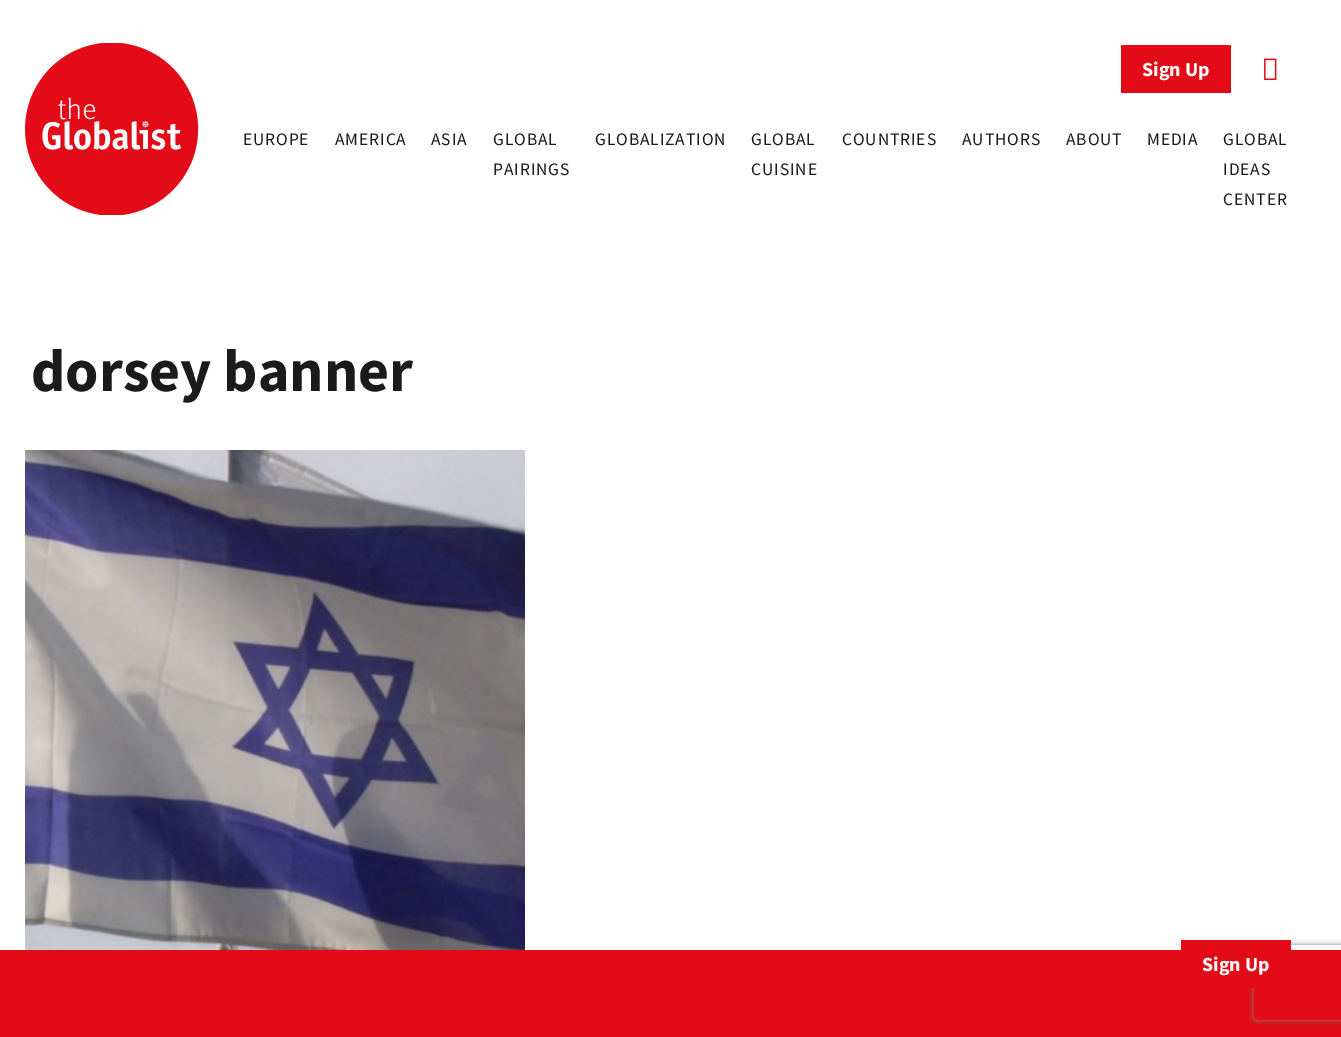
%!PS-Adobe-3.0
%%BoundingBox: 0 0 1341 1037
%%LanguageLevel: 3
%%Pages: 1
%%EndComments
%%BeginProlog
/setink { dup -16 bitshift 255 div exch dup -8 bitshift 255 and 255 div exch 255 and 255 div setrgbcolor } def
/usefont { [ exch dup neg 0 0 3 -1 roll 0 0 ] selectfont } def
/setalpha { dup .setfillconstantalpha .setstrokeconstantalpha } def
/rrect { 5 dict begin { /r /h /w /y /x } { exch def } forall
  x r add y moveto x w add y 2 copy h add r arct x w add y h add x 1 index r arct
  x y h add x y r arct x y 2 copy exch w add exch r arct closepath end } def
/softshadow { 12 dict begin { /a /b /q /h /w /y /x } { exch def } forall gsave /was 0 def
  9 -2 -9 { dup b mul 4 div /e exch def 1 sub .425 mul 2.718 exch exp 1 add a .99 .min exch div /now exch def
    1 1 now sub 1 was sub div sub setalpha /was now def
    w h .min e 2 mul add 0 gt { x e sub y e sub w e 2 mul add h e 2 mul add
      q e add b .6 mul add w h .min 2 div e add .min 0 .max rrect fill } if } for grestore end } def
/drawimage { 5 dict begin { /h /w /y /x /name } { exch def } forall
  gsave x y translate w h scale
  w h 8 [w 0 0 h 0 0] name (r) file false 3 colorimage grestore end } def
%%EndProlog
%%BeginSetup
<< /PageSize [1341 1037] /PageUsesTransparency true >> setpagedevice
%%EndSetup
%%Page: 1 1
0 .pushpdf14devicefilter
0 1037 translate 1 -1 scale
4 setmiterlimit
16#FFFFFF setink
0 0 1341 1037 rectfill
(img1.raw) 25 43 174 172 drawimage
16#E30B17 setink
1121 45 110 48 rectfill
/SourceSansPro-Bold 20 usefont
16#FFFFFF setink
1142 76 moveto (Sign Up) show
(img2.raw) 1264 58 13 22 drawimage
/SourceSansPro-Regular 17.5 usefont
16#1C1B1C setink
243 145 moveto 0.9 0 (EUROPE) ashow
335 145 moveto 0.9 0 (AMERICA) ashow
431 145 moveto 0.9 0 (ASIA) ashow
493 145 moveto 0.9 0 (GLOBAL) ashow
493 175 moveto 0.9 0 (PAIRINGS) ashow
595 145 moveto 0.9 0 (GLOBALIZATION) ashow
751 145 moveto 0.9 0 (GLOBAL) ashow
751 175 moveto 0.9 0 (CUISINE) ashow
842 145 moveto 0.9 0 (COUNTRIES) ashow
962 145 moveto 0.9 0 (AUTHORS) ashow
1066 145 moveto 0.9 0 (ABOUT) ashow
1147 145 moveto 0.9 0 (MEDIA) ashow
1223 145 moveto 0.9 0 (GLOBAL) ashow
1223 175 moveto 0.9 0 (IDEAS) ashow
1223 205 moveto 0.9 0 (CENTER) ashow
/SourceSansPro-Bold 60 usefont
31 391 moveto (dorsey banner) show
(img3.raw) 25 450 500 500 drawimage
16#E30B17 setink
0 950 1341 87 rectfill
gsave
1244 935 moveto 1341 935 lineto 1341 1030 lineto 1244 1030 lineto closepath 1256.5 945 moveto 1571.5 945 lineto 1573 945 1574 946 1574 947.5 curveto 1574 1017.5 lineto 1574 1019 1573 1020 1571.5 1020 curveto 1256.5 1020 lineto 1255 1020 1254 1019 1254 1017.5 curveto 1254 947.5 lineto 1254 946 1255 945 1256.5 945 curveto closepath eoclip newpath
16#808080 setink
1254 945 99 75 2.5 3 1 softshadow
grestore
1181 940 110 48 rectfill
/SourceSansPro-Bold 20 usefont
16#FFFFFF setink
1202 971 moveto (Sign Up) show
.poppdf14devicefilter showpage
%%EOF
